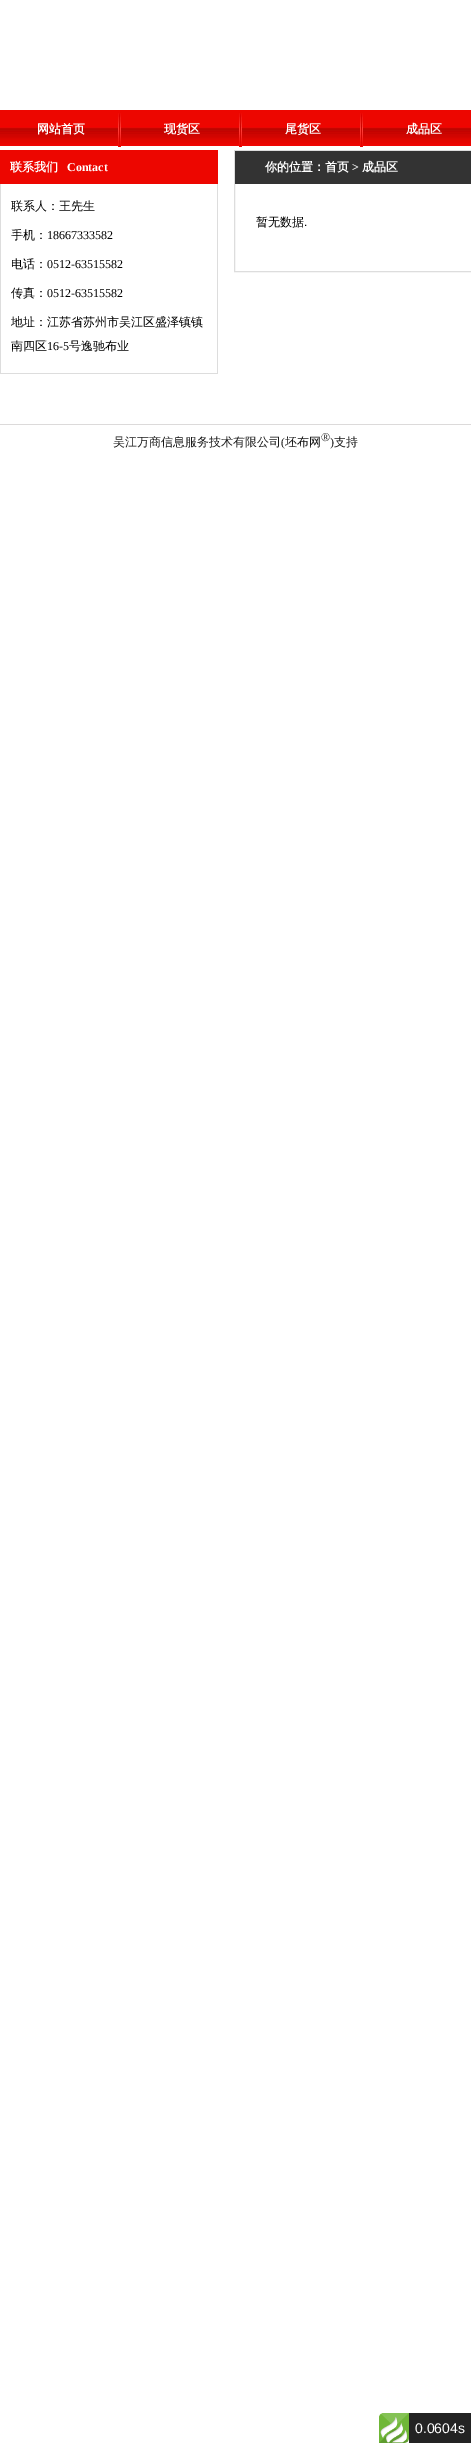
%!PS-Adobe-3.0
%%BoundingBox: 0 0 471 2443
%%LanguageLevel: 3
%%Pages: 1
%%EndComments
%%BeginProlog
/setink { dup -16 bitshift 255 div exch dup -8 bitshift 255 and 255 div exch 255 and 255 div setrgbcolor } def
/usefont { [ exch dup neg 0 0 3 -1 roll 0 0 ] selectfont } def
/drawimage { 5 dict begin { /h /w /y /x /name } { exch def } forall
  gsave x y translate w h scale
  w h 8 [w 0 0 h 0 0] name (r) file false 3 colorimage grestore end } def
%%EndProlog
%%BeginSetup
<< /PageSize [471 2443] >> setpagedevice
%%EndSetup
%%Page: 1 1
0 2443 translate 1 -1 scale
4 setmiterlimit
16#FFFFFF setink
0 0 471 2443 rectfill
(img1.raw) 0 110 471 36 drawimage
(img2.raw) 118 113 3 34 drawimage
/WenQuanYiZenHei-Bold 12 usefont
37 133 moveto (网站首页) show
(img2.raw) 239 113 3 34 drawimage
164 133 moveto (现货区) show
(img2.raw) 360 113 3 34 drawimage
285 133 moveto (尾货区) show
406 133 moveto (成品区) show
16#ED0600 setink
0 150 218 34 rectfill
16#FFFFFF setink
10 171 moveto (联系我们) show
/LiberationSerif-Bold 12 usefont
67 171 moveto (Contact) show
[
    [217 184 1 190 16#DDDDDD]
    [0 373 218 1 16#DDDDDD]
    [0 184 1 190 16#DDDDDD]
] { aload pop setink rectfill } forall
/WenQuanYiZenHei-Medium 12 usefont
16#000000 setink
11 210 moveto (联系人：王先生) show
11 239 moveto (手机：) show
/LiberationSerif-Regular 12 usefont
47 239 moveto (18667333582) show
/WenQuanYiZenHei-Medium 12 usefont
11 268 moveto (电话：) show
/LiberationSerif-Regular 12 usefont
47 268 moveto (0512-63515582) show
/WenQuanYiZenHei-Medium 12 usefont
11 297 moveto (传真：) show
/LiberationSerif-Regular 12 usefont
47 297 moveto (0512-63515582) show
/WenQuanYiZenHei-Medium 12 usefont
11 326 moveto (地址：江苏省苏州市吴江区盛泽镇镇) show
11 350 moveto (南四区) show
/LiberationSerif-Regular 12 usefont
47 350 moveto (16-5) show
/WenQuanYiZenHei-Medium 12 usefont
69 350 moveto (号逸驰布业) show
16#DDDDDD setink
234.5 150.5 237 121 rectstroke
16#333333 setink
235 151 236 33 rectfill
/WenQuanYiZenHei-Bold 12 usefont
16#FFFFFF setink
265 171 moveto (你的位置：首页) show
/LiberationSerif-Bold 12 usefont
352 171 moveto (>) show
/WenQuanYiZenHei-Bold 12 usefont
362 171 moveto (成品区) show
/WenQuanYiZenHei-Medium 12 usefont
16#000000 setink
256 226 moveto (暂无数据) show
/LiberationSans-Regular 12 usefont
304 226 moveto (.) show
16#DCDADA setink
0 424 471 1 rectfill
/WenQuanYiZenHei-Medium 12 usefont
16#191919 setink
113 446 moveto (吴江万商信息服务技术有限公司) show
/LiberationSerif-Regular 12 usefont
281 446 moveto (\() show
/WenQuanYiZenHei-Medium 12 usefont
285 446 moveto (坯布网) show
/LiberationSerif-Regular 12 usefont
321 441 moveto (®) show
330 446 moveto (\)) show
/WenQuanYiZenHei-Medium 12 usefont
334 446 moveto (支持) show
(img3.raw) 379 2413 30 30 drawimage
16#232323 setink
409 2413 62 30 rectfill
/LiberationSans-Regular 14 usefont
16#FFFFFF setink
415 2433 moveto (0.0604s) show
showpage
%%EOF
